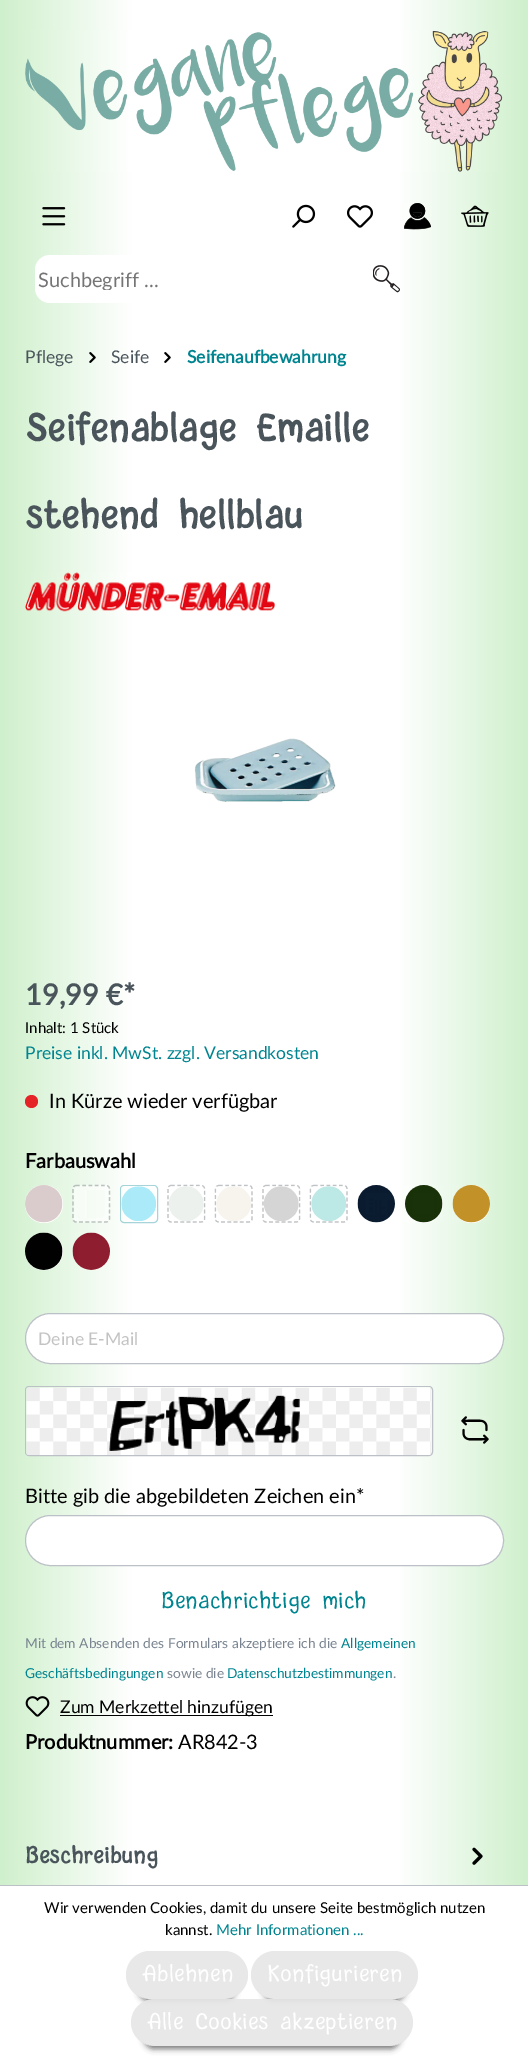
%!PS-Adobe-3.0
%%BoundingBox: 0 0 528 2056
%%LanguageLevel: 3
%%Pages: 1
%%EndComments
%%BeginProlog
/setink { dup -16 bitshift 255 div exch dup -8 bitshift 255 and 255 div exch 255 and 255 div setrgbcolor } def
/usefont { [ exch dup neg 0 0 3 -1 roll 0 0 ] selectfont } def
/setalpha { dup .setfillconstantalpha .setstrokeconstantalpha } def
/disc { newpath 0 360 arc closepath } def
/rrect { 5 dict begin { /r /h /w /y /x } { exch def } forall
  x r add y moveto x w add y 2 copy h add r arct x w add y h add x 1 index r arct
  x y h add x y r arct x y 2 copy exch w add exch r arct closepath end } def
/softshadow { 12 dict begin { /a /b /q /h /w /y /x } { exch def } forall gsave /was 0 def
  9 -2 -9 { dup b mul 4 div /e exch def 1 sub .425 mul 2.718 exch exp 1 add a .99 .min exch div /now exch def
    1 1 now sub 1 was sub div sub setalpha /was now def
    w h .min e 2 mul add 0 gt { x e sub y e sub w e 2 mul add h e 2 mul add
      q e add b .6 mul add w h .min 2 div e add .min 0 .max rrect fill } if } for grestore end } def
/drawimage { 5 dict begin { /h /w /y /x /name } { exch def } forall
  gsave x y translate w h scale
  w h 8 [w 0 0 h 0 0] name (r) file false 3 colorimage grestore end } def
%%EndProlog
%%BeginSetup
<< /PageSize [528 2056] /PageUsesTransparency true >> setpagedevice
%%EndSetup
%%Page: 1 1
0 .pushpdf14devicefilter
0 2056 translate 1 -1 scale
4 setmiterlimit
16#FFFFFF setink
0 0 528 2056 rectfill
gsave 0 0 moveto 528 0 lineto 528 1885 lineto 0 1885 lineto closepath clip newpath
<< /ShadingType 2 /ColorSpace /DeviceRGB /Coords [0 1633 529 1633] /Extend [true true] /Function << /FunctionType 3 /Domain [0 1] /Functions [<< /FunctionType 2 /Domain [0 1] /C0 [0.812 0.941 0.8] /C1 [1 1 1] /N 1 >> << /FunctionType 2 /Domain [0 1] /C0 [1 1 1] /C1 [1 1 1] /N 1 >> << /FunctionType 2 /Domain [0 1] /C0 [1 1 1] /C1 [0.812 0.941 0.8] /N 1 >>] /Bounds [0.25 0.75] /Encode [0 1 0 1 0 1] >> >> shfill grestore
(img1.raw) 25 30 478 142 drawimage
(img2.raw) 42 207 24 19 drawimage
(img3.raw) 292 204 24 24 drawimage
(img4.raw) 347 205 26 23 drawimage
(img5.raw) 404 203 27 27 drawimage
(img6.raw) 461 205 28 22 drawimage
35 255 324 48 15 rrect fill
gsave
38 266 318 24 rectclip
/Lato-Regular 20 usefont
16#757575 setink
38 287 moveto (Suchbegriff ...) show
grestore
(img7.raw) 373 265 27 28 drawimage
/Lato-Regular 17.5 usefont
16#4A545B setink
25 363 moveto (Pflege) show
(img8.raw) 89 352 7 11 drawimage
111 363 moveto (Seife) show
(img9.raw) 164 352 7 11 drawimage
/Lato-Bold 17.5 usefont
16#008490 setink
187 363 moveto (Seifenaufbewahrung) show
/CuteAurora-Bold 42 usefont
16#4A545B setink
25 441 moveto (Seifenablage Emaille) show
25 528 moveto (stehend hellblau) show
(img10.raw) 25 572 250 40 drawimage
(img11.raw) 194 738 142 64 drawimage
/Lato-Bold 29 usefont
25 1005 moveto (19,99 €*) show
/Lato-Regular 15 usefont
16#000000 setink
25 1033 moveto (Inhalt: 1 Stück) show
/Lato-Regular 17.5 usefont
16#008490 setink
25 1059 moveto (Preise inkl. MwSt. zzgl. Versandkosten) show
16#E52427 setink
31.5 1101.5 6.5 disc fill
/Lato-Regular 20 usefont
16#000000 setink
49 1108 moveto (In Kürze wieder verfügbar) show
/Lato-Bold 20 usefont
25 1168 moveto (Farbauswahl) show
16#FFFFFF setink
44 1204 19 disc fill
29 1216 moveto 36 1224.5 49.5 1225.5 57.5 1217.5 curveto 65.5 1209.5 64.5 1196 55.5 1189 curveto 63 1200 57.5 1219 40 1219 curveto 35.5 1219 32 1218 29 1216 curveto closepath fill
48 1189 moveto 52.5 1189 56.5 1190.5 59 1192.5 curveto 52.5 1183.5 38.5 1182.5 30.5 1190.5 curveto 22 1199 23.5 1213.5 33.5 1220 curveto 24.5 1209.5 29.5 1189 48 1189 curveto closepath fill
(img12.raw) 25 1185 38 38 drawimage
0.35 setalpha
73 1185 37 38 4 rrect fill
74 1218 moveto 74 1218.5 lineto 74 1220 75 1221 76.5 1221 curveto 106.5 1221 lineto 108 1221 109 1220 109 1218.5 curveto 109 1188.5 lineto 109 1187 108 1186 106.5 1186 curveto 105 1186 lineto 105 1215 lineto 105 1216 104 1218 102 1218 curveto closepath fill
80 1190 moveto 109 1190 lineto 109 1185 106.5 1186 101.5 1186 curveto 81.5 1186 lineto 73.5 1186 74 1185.5 74 1193.5 curveto 74 1213.5 lineto 74 1218.5 73 1221 78 1221 curveto 78 1192 lineto 78 1191 79 1190 80 1190 curveto closepath fill
16#4A545B setink
1.2 setlinewidth
[3.75 2.5] 0 setdash
76 1185.5 moveto 106 1185.5 lineto 108 1185.5 109.5 1187 109.5 1189 curveto 109.5 1219 lineto 109.5 1220.5 108 1222 106 1222 curveto 76 1222 lineto 74.5 1222 73 1220.5 73 1219 curveto 73 1189 lineto 73 1187 74.5 1185.5 76 1185.5 curveto closepath stroke
1 setalpha
(img13.raw) 78 1190 9 28 drawimage
0.35 setalpha
16#008490 setink
1 setlinewidth
[] 0 setdash
120.5 1185.5 37 37 3.5 rrect stroke
1 setalpha
(img14.raw) 121 1186 35 35 drawimage
16#C0C3C6 setink
1.2 setlinewidth
[3.75 2.5] 0 setdash
171 1185.5 moveto 201 1185.5 lineto 203 1185.5 204.5 1187 204.5 1189 curveto 204.5 1219 lineto 204.5 1220.5 203 1222 201 1222 curveto 171 1222 lineto 169.5 1222 168 1220.5 168 1219 curveto 168 1189 lineto 168 1187 169.5 1185.5 171 1185.5 curveto closepath stroke
(img15.raw) 169 1186 35 35 drawimage
219 1185.5 moveto 249 1185.5 lineto 250.5 1185.5 252 1187 252 1189 curveto 252 1219 lineto 252 1220.5 250.5 1222 249 1222 curveto 219 1222 lineto 217 1222 215.5 1220.5 215.5 1219 curveto 215.5 1189 lineto 215.5 1187 217 1185.5 219 1185.5 curveto closepath stroke
(img16.raw) 216 1186 35 35 drawimage
266 1185.5 moveto 296 1185.5 lineto 298 1185.5 299.5 1187 299.5 1189 curveto 299.5 1219 lineto 299.5 1220.5 298 1222 296 1222 curveto 266 1222 lineto 264.5 1222 263 1220.5 263 1219 curveto 263 1189 lineto 263 1187 264.5 1185.5 266 1185.5 curveto closepath stroke
(img17.raw) 264 1186 35 35 drawimage
314 1185.5 moveto 344 1185.5 lineto 345.5 1185.5 347 1187 347 1189 curveto 347 1219 lineto 347 1220.5 345.5 1222 344 1222 curveto 314 1222 lineto 312 1222 310.5 1220.5 310.5 1219 curveto 310.5 1189 lineto 310.5 1187 312 1185.5 314 1185.5 curveto closepath stroke
(img18.raw) 311 1186 35 35 drawimage
(img19.raw) 357 1185 38 38 drawimage
16#FFFFFF setink
424 1204 19 disc fill
409 1216 moveto 416 1224.5 429.5 1225.5 437.5 1217.5 curveto 445.5 1209.5 444.5 1196 435.5 1189 curveto 443 1200 437.5 1219 420 1219 curveto 415.5 1219 412 1218 409 1216 curveto closepath fill
428 1189 moveto 432.5 1189 436.5 1190.5 439 1192.5 curveto 432.5 1183.5 418.5 1182.5 410.5 1190.5 curveto 402 1199 403.5 1213.5 413.5 1220 curveto 404.5 1209.5 409.5 1189 428 1189 curveto closepath fill
(img20.raw) 405 1185 38 38 drawimage
453 1185 37 38 18.5 rrect fill
456.5 1215.5 moveto 463.5 1224.5 476.5 1225.5 484.5 1217.5 curveto 492.5 1209.5 491.5 1196 483 1189 curveto 490 1200 485 1219 468 1219 curveto 463.5 1219 459.5 1217.5 456.5 1215.5 curveto closepath fill
475 1189 moveto 479.5 1189 483.5 1190 486 1192 curveto 479.5 1183.5 466.5 1182.5 458.5 1190.5 curveto 450.5 1198 451.5 1212 460 1219 curveto 452 1208 457 1189 475 1189 curveto closepath fill
(img21.raw) 452 1185 38 38 drawimage
25 1233 38 37 18.5 rrect fill
29 1263 moveto 35.5 1271.5 49.5 1272.5 57.5 1264.5 curveto 65.5 1256.5 64.5 1243 55.5 1236.5 curveto 63 1247.5 57.5 1266 40 1266 curveto 35.5 1266 31.5 1265 29 1263 curveto closepath fill
(img22.raw) 25 1232 38 38 drawimage
77 1263 moveto 83.5 1271.5 96.5 1272.5 104.5 1264.5 curveto 112 1257 111.5 1244 103.5 1237 curveto 110 1248 104.5 1266 88 1266 curveto 83.5 1266 79.5 1265 77 1263 curveto closepath fill
(img23.raw) 72 1232 38 38 drawimage
25.5 1313.5 478 50 25 rrect gsave fill grestore
16#BCC1C7 setink
1 setlinewidth
[] 0 setdash
stroke
/Lato-Regular 17.5 usefont
16#C3C3C3 setink
38 1345 moveto (Deine E-Mail) show
16#BCC1C7 setink
25.5 1386.5 407 69 3.5 rrect stroke
(img24.raw) 26 1387 405 68 drawimage
(img25.raw) 461 1416 28 28 drawimage
/Lato-Regular 20 usefont
16#000000 setink
25 1503 moveto (Bitte gib die abgebildeten Zeichen ein*) show
16#FFFFFF setink
25.5 1515.5 478 50 25 rrect gsave fill grestore
16#BCC1C7 setink
stroke
/CuteAurora-Regular 25 usefont
16#008490 setink
161 1608 moveto (Benachrichtige mich) show
/Lato-Regular 13.75 usefont
16#798490 setink
25 1648 moveto (Mit dem Absenden des Formulars akzeptiere ich die) show
16#008490 setink
341 1648 moveto (Allgemeinen) show
25 1678 moveto (Geschäftsbedingungen) show
16#798490 setink
167 1678 moveto (sowie die) show
16#008490 setink
227 1678 moveto (Datenschutzbestimmungen) show
16#798490 setink
393 1678 moveto (.) show
(img26.raw) 25 1696 25 21 drawimage
16#000000 setink
60 1715 213 1 rectfill
/Lato-Regular 17.5 usefont
60 1713 moveto (Zum Merkzettel hinzufügen) show
/Lato-Bold 20 usefont
25 1749 moveto (Produktnummer:) show
/Lato-Regular 20 usefont
178 1749 moveto (AR842-3) show
/CuteAurora-Bold 25 usefont
16#4A545B setink
25 1863 moveto (Beschreibung) show
(img27.raw) 472 1847 11 18 drawimage
16#BCC1C7 setink
0 1885 528 1 rectfill
/Lato-Regular 15 usefont
16#000000 setink
44 1913 moveto (Wir verwenden Cookies, damit du unsere Seite bestmöglich nutzen) show
165 1935 moveto (kannst.) show
16#008490 setink
216 1935 moveto (Mehr Informationen ...) show
gsave
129 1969 moveto 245 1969 lineto 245 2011 lineto 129 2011 lineto closepath 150 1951 moveto 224 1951 lineto 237.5 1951 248 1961.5 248 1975 curveto 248 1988.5 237.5 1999 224 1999 curveto 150 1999 lineto 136.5 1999 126 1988.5 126 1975 curveto 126 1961.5 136.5 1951 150 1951 curveto closepath eoclip newpath
16#777777 setink
139 1979 96 22 11 3 1 softshadow
grestore
0.91 setalpha
16#E6E6E6 setink
126 1951 122 48 24 rrect fill
/CuteAurora-Regular 25 usefont
1 setalpha
16#FFFFFF setink
142 1981 moveto (Ablehnen) show
gsave
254 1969 moveto 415 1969 lineto 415 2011 lineto 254 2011 lineto closepath 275 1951 moveto 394 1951 lineto 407.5 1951 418 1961.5 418 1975 curveto 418 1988.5 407.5 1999 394 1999 curveto 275 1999 lineto 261.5 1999 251 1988.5 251 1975 curveto 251 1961.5 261.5 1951 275 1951 curveto closepath eoclip newpath
16#777777 setink
264 1979 141 22 11 3 1 softshadow
grestore
0.91 setalpha
16#E6E6E6 setink
251 1951 167 48 24 rrect fill
1 setalpha
16#FFFFFF setink
267 1981 moveto (Konfigurieren) show
gsave
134 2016 moveto 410 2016 lineto 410 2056 lineto 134 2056 lineto closepath 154.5 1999 moveto 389.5 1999 lineto 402.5 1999 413 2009.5 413 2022.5 curveto 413 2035.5 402.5 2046 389.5 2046 curveto 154.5 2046 lineto 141.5 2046 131 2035.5 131 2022.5 curveto 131 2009.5 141.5 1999 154.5 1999 curveto closepath eoclip newpath
16#777777 setink
144 2026 256 23 11.5 3 1 softshadow
grestore
0.91 setalpha
16#E6E6E6 setink
131 1999 282 47 23.5 rrect fill
1 setalpha
16#FFFFFF setink
147 2029 moveto (Alle Cookies akzeptieren) show
.poppdf14devicefilter showpage
%%EOF
